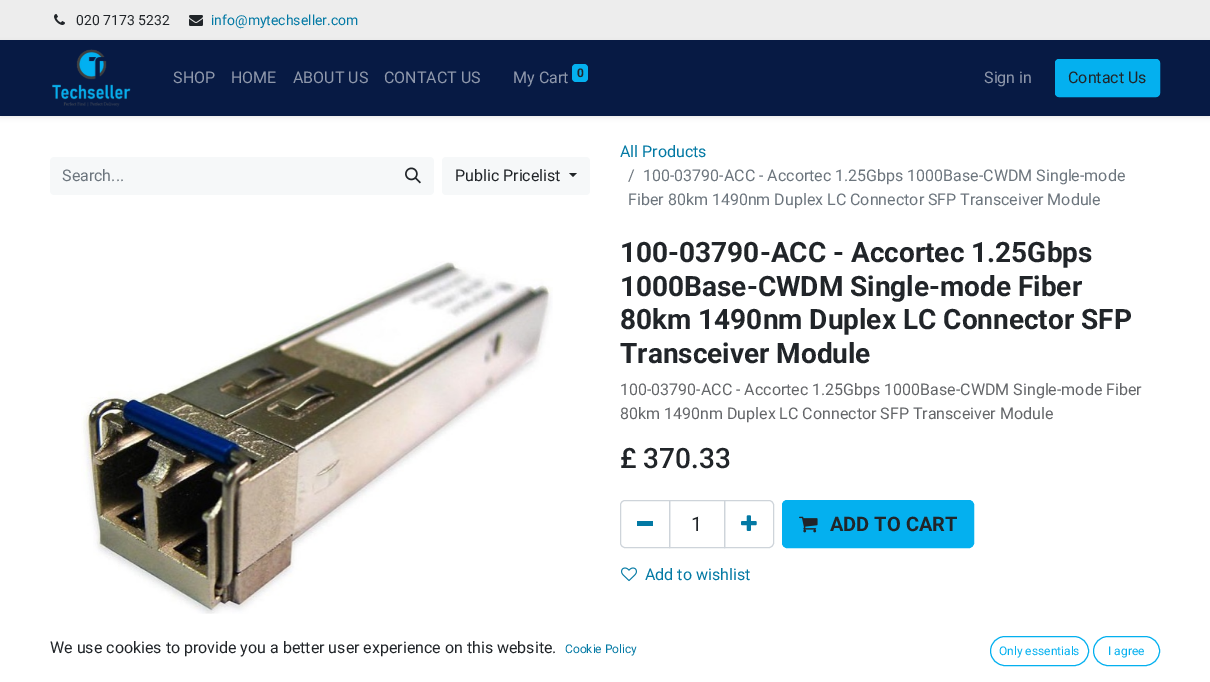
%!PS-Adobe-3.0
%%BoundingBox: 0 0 1210 682
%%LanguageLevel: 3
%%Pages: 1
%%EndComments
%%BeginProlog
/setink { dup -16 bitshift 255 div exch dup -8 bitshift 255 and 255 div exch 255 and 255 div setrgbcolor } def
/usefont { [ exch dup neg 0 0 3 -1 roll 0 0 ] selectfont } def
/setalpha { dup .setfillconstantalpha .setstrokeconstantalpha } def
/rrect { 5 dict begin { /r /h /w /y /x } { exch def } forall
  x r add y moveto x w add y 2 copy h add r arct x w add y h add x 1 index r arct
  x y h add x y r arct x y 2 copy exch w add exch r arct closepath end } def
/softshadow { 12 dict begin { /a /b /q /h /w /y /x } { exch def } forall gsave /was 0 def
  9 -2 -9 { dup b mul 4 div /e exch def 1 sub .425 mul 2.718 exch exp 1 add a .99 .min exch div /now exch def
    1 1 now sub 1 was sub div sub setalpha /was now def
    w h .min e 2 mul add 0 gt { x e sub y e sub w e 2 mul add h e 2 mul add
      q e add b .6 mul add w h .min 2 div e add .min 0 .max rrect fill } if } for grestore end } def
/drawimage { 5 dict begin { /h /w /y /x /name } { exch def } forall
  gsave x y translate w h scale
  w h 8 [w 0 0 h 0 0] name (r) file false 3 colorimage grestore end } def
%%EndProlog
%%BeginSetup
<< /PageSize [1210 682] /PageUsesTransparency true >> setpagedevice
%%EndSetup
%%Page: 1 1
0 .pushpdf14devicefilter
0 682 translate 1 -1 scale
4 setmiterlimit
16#FFFFFF setink
0 0 1210 682 rectfill
16#EDEDED setink
0 0 1210 40 rectfill
(img1.raw) 54 14 11 11 drawimage
/Roboto-Regular 14 usefont
16#212529 setink
76 25 moveto (020 7173 5232) show
(img2.raw) 189 15 14 11 drawimage
16#0379A4 setink
211 25 moveto (info@mytechseller.com) show
16#000000 setink
0 42 1210 76 0 2 0.07 softshadow
16#071A44 setink
0 40 1210 76 rectfill
(img3.raw) 52 49 79 58 drawimage
/Roboto-Regular 16 usefont
16#8F98AB setink
[
    [(SHOP) 173 83]
    [(HOME) 231 83]
    [(ABOUT US) 293 83]
    [(CONTACT US) 384 83]
    [(My Cart) 513 83]
] { aload pop moveto show } forall
16#04B0EF setink
572 64 16 18 4 rrect fill
/Roboto-Bold 12 usefont
16#212529 setink
577 77 moveto (0) show
/Roboto-Regular 16 usefont
16#8F98AB setink
984 83 moveto (Sign in) show
16#04B0EF setink
1055.5 59.5 104 37 3.5 rrect gsave fill grestore
stroke
16#212529 setink
1068 83 moveto (Contact Us) show
16#F6F8F9 setink
54 157 moveto 393 157 lineto 393 195 lineto 54 195 lineto 52 195 50 193 50 191 curveto 50 161 lineto 50 159 52 157 54 157 curveto closepath fill
16#6C757D setink
62 181 moveto (Search...) show
16#F6F8F9 setink
392 157 moveto 430 157 lineto 432 157 434 159 434 161 curveto 434 191 lineto 434 193 432 195 430 195 curveto 392 195 lineto closepath fill
(img4.raw) 405 167 16 17 drawimage
442 157 148 38 4 rrect fill
16#212529 setink
455 181 moveto (Public Pricelist) show
569 173 moveto 577 173 lineto 573 177 lineto closepath fill
16#0379A4 setink
620 157 moveto (All Products) show
16#6C757D setink
[
    [(/) 628 181]
    [(100-03790-ACC - Accortec 1.25Gbps 1000Base-CWDM Single-mode) 643 181]
    [(Fiber 80km 1490nm Duplex LC Connector SFP Transceiver Module) 628 205]
] { aload pop moveto show } forall
(img5.raw) 81 261 472 353 drawimage
/Roboto-Bold 28 usefont
16#212529 setink
[
    [(100-03790-ACC - Accortec 1.25Gbps) 620 262]
    [(1000Base-CWDM Single-mode Fiber) 620 296]
    [(80km 1490nm Duplex LC Connector SFP) 620 329]
    [(Transceiver Module) 620 363]
] { aload pop moveto show } forall
/Roboto-Regular 16 usefont
16#646669 setink
620 395 moveto (100-03790-ACC - Accortec 1.25Gbps 1000Base-CWDM Single-mode Fiber) show
620 419 moveto (80km 1490nm Duplex LC Connector SFP Transceiver Module) show
/Roboto-Medium 28 usefont
16#212529 setink
620 468 moveto (£ 370.33) show
16#CED4DA setink
669.5 500.5 55 47 rectstroke
625 500.5 moveto 669.5 500.5 lineto 669.5 547.5 lineto 625 547.5 lineto 622.5 547.5 620.5 545.5 620.5 543 curveto 620.5 505 lineto 620.5 502.5 622.5 500.5 625 500.5 curveto closepath stroke
16#0379A4 setink
637 521 16 5 rectfill
/Roboto-Regular 20 usefont
16#212529 setink
691 531 moveto (1) show
16#CED4DA setink
724.5 500.5 moveto 769 500.5 lineto 771.5 500.5 773.5 502.5 773.5 505 curveto 773.5 543 lineto 773.5 545.5 771.5 547.5 769 547.5 curveto 724.5 547.5 lineto closepath stroke
(img6.raw) 741 515 16 16 drawimage
16#04B0EF setink
782.5 500.5 191 47 4.5 rrect gsave fill grestore
stroke
(img7.raw) 799 516 19 17 drawimage
/Roboto-Bold 20 usefont
16#212529 setink
830 531 moveto (ADD TO CART) show
(img8.raw) 621 567 16 15 drawimage
/Roboto-Regular 16 usefont
16#0379A4 setink
645 580 moveto (Add to wishlist) show
16#212529 setink
50 653 moveto (We use cookies to provide you a better user experience on this website.) show
/Roboto-Regular 12 usefont
16#0379A4 setink
565 653 moveto (Cookie Policy) show
16#04B0EF setink
990.5 636.5 98 29 14.5 rrect stroke
999 655 moveto (Only essentials) show
1093.5 636.5 66 29 14.5 rrect stroke
1108 655 moveto (I agree) show
.poppdf14devicefilter showpage
%%EOF
